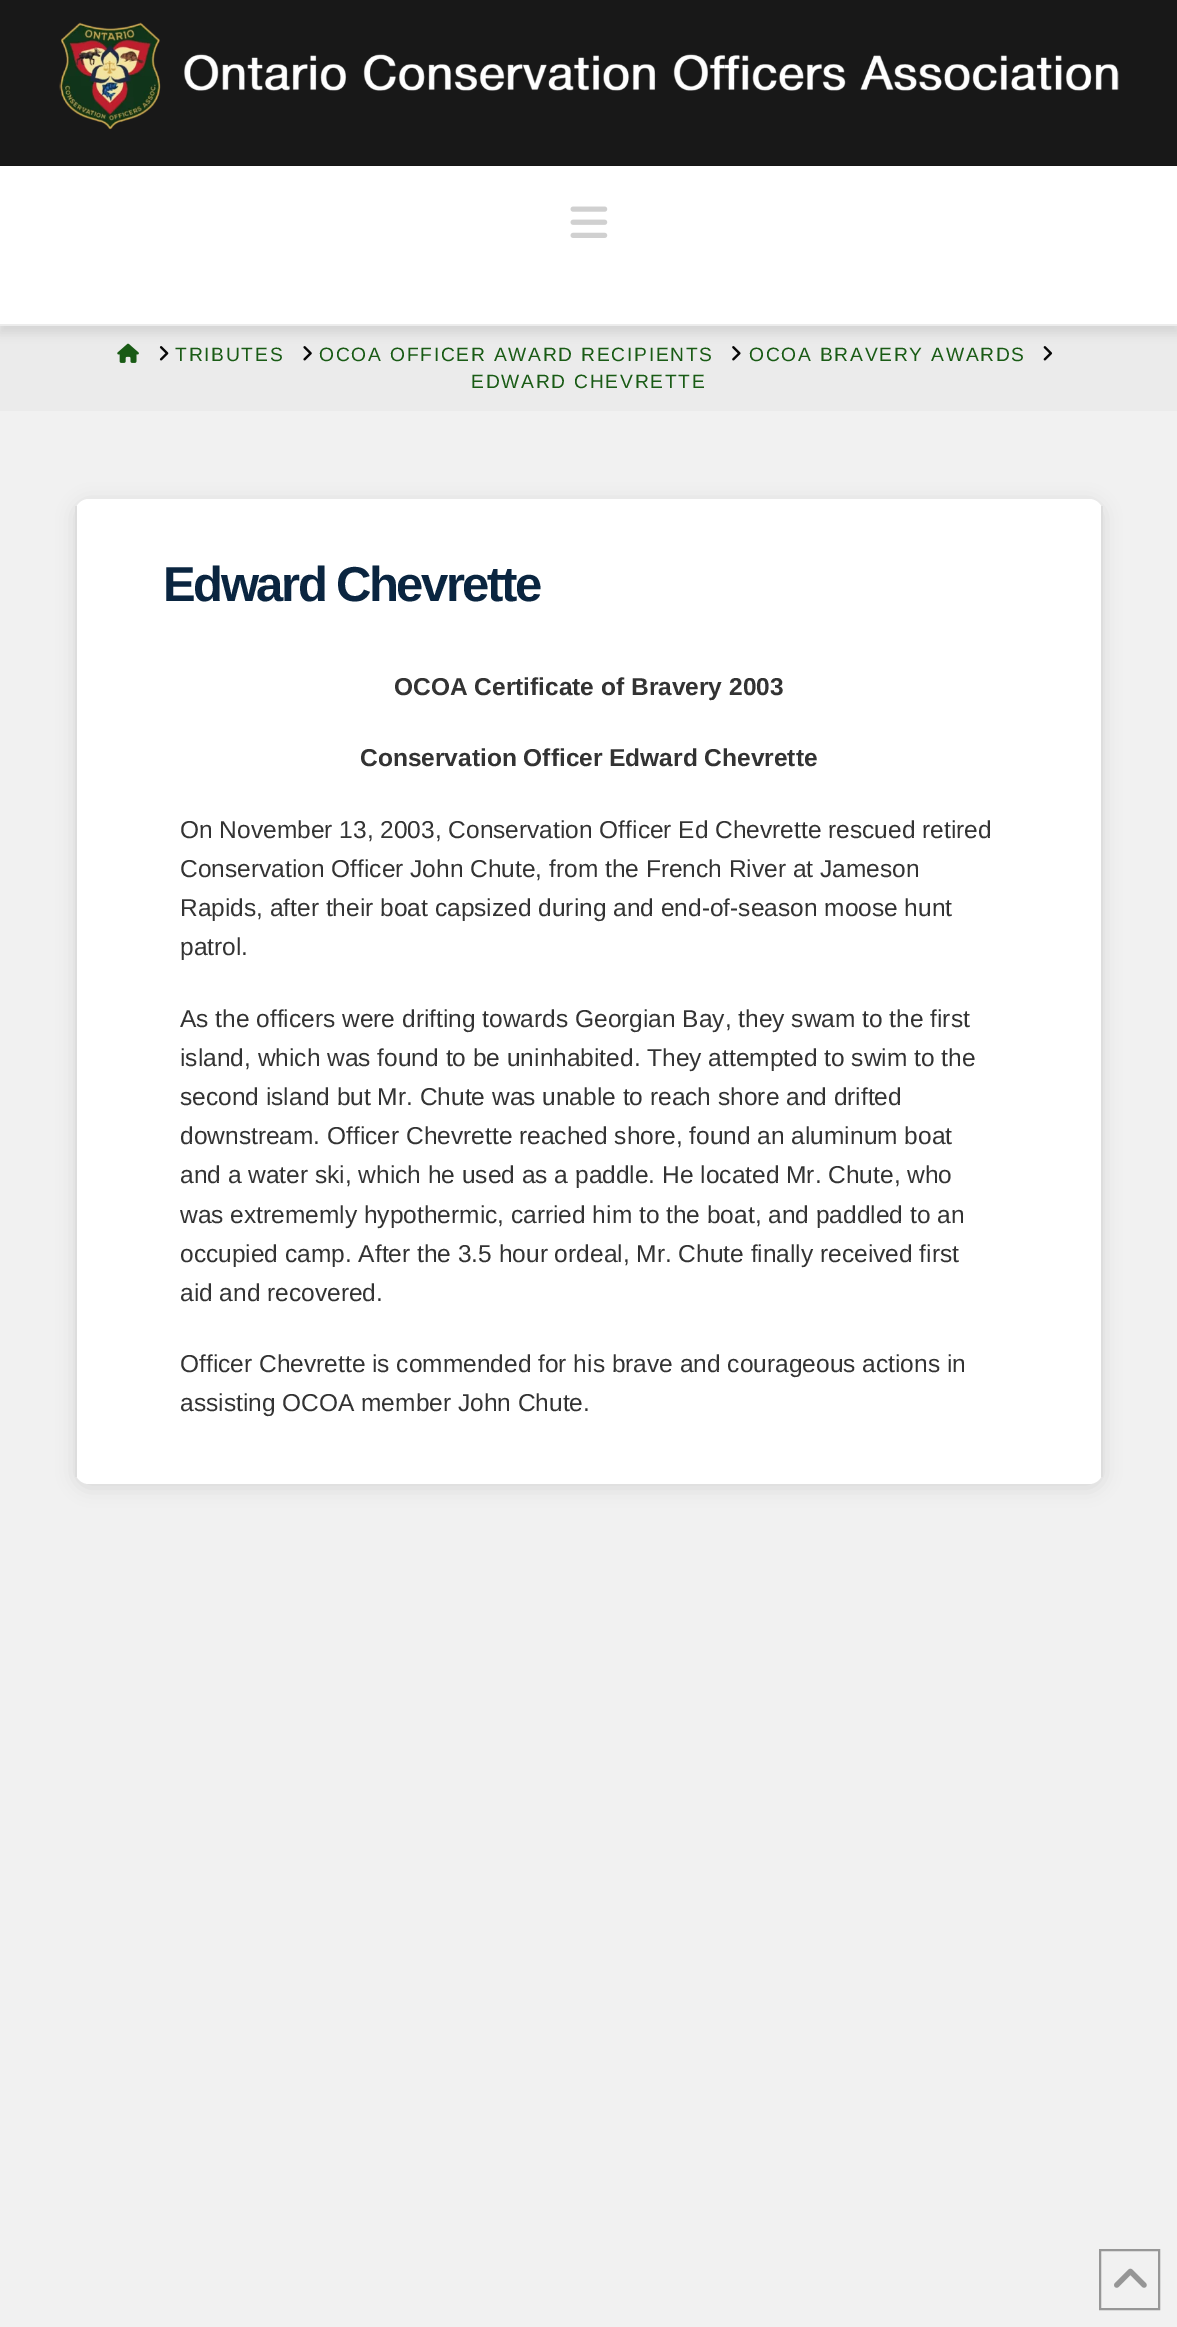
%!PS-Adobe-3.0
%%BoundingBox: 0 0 1177 2327
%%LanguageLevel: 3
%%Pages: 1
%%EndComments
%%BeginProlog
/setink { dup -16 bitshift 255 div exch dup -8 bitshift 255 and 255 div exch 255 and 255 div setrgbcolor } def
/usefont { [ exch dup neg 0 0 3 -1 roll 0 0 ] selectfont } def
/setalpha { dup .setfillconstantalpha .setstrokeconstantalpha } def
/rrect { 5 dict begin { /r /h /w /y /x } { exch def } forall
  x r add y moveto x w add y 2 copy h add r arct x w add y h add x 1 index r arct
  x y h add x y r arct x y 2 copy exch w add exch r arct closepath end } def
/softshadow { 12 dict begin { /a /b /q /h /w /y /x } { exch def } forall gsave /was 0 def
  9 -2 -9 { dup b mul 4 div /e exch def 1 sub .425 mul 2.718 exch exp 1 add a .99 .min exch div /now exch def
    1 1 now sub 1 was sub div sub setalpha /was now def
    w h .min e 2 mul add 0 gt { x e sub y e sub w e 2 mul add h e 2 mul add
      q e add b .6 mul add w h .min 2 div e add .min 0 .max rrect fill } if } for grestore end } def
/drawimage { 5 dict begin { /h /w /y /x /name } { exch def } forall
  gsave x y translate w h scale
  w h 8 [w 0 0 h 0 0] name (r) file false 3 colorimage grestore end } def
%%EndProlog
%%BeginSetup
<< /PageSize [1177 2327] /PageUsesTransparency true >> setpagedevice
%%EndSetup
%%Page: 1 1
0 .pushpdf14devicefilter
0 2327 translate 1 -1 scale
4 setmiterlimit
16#F1F1F1 setink
0 0 1177 2327 rectfill
16#181818 setink
0 0 1177 165 rectfill
16#161616 setink
0 165 1177 1 rectfill
(img1.raw) 59 22 1060 108 drawimage
16#EBEBEB setink
0 326 1177 85 rectfill
(img3.raw) 117 343 22 20 drawimage
(img4.raw) 159 346 10 15 drawimage
(img5.raw) 303 346 9 15 drawimage
(img6.raw) 732 346 9 15 drawimage
(img7.raw) 1043 346 10 15 drawimage
16#000000 setink
0 173 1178 160 0 5 0.1 softshadow
16#FFFFFF setink
0 166 1177 158 rectfill
16#ECECEC setink
0 324 1177 2 rectfill
(img2.raw) 570 206 38 32 drawimage
/LiberationSans-Regular 19.25 usefont
16#195B15 setink
175 361 moveto 1.75 0 (TRIBUTES) ashow
319 361 moveto 1.75 0 (OCOA OFFICER AWARD RECIPIENTS) ashow
749 361 moveto 1.75 0 (OCOA BRAVERY AWARDS) ashow
471 388 moveto 1.75 0 (EDWARD CHEVRETTE) ashow
16#000000 setink
75 502 1028 986 14 9 0.1 softshadow
16#FFFFFF setink
75 499 1028 985 14 rrect fill
16#DDDDDD setink
1101 506 2 971 rectfill
75 506 2 971 rectfill
/LiberationSans-Bold 49 usefont
16#0A2540 setink
163 601 moveto -2.5 0 (Edward Chevrette) ashow
/LiberationSans-Bold 24.5 usefont
16#333333 setink
394 695 moveto (OCOA Certificate of Bravery 2003) show
360 766 moveto (Conservation Officer Edward Chevrette) show
/LiberationSans-Regular 24.5 usefont
[
    [(On November 13, 2003, Conservation Officer Ed Chevrette rescued retired) 180 838]
    [(Conservation Officer John Chute, from the French River at Jameson) 180 877]
    [(Rapids, after their boat capsized during and end-of-season moose hunt) 180 916]
    [(patrol.) 180 955]
    [(As the officers were drifting towards Georgian Bay, they swam to the first) 180 1027]
    [(island, which was found to be uninhabited. They attempted to swim to the) 180 1066]
    [(second island but Mr. Chute was unable to reach shore and drifted) 180 1105]
    [(downstream. Officer Chevrette reached shore, found an aluminum boat) 180 1144]
    [(and a water ski, which he used as a paddle. He located Mr. Chute, who) 180 1183]
    [(was extrememly hypothermic, carried him to the boat, and paddled to an) 180 1223]
    [(occupied camp. After the 3.5 hour ordeal, Mr. Chute finally received first) 180 1262]
    [(aid and recovered.) 180 1301]
    [(Officer Chevrette is commended for his brave and courageous actions in) 180 1372]
    [(assisting OCOA member John Chute.) 180 1411]
] { aload pop moveto show } forall
16#979797 setink
2 setlinewidth
1100 2250 59 59 rectstroke
(img8.raw) 1114 2268 33 20 drawimage
.poppdf14devicefilter showpage
%%EOF
